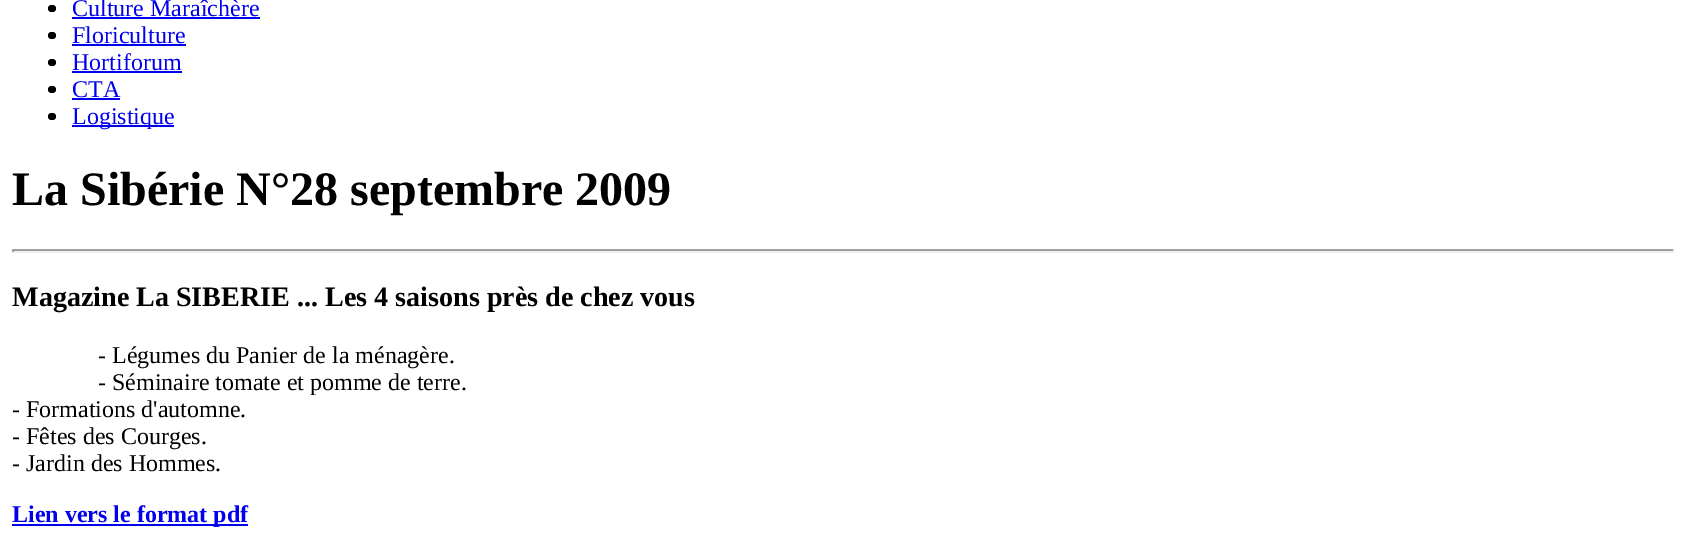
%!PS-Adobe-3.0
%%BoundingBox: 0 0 1685 552
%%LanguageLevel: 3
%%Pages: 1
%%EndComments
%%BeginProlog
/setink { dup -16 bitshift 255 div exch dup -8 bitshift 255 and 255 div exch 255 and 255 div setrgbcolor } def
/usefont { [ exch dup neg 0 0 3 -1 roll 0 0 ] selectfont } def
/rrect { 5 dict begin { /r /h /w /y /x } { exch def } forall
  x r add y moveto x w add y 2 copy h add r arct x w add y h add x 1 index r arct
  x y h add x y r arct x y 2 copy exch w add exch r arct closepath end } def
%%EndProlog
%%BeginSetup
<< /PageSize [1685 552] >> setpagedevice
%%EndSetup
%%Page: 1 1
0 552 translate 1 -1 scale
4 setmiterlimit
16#FFFFFF setink
0 0 1685 552 rectfill
16#000000 setink
48 5 8 7 3.5 rrect fill
/LiberationSerif-Regular 24 usefont
16#0000EE setink
72 16 moveto (Culture Maraîchère) show
72 17 188 2 rectfill
16#000000 setink
48 32 8 7 3.5 rrect fill
16#0000EE setink
72 43 moveto (Floriculture) show
72 44 114 2 rectfill
16#000000 setink
48 59 8 7 3.5 rrect fill
16#0000EE setink
72 70 moveto (Hortiforum) show
72 71 110 2 rectfill
16#000000 setink
48 86 8 7 3.5 rrect fill
16#0000EE setink
72 97 moveto (CTA) show
72 98 48 2 rectfill
16#000000 setink
48 113 8 7 3.5 rrect fill
16#0000EE setink
72 125 102 2 rectfill
72 124 moveto (Logistique) show
/LiberationSerif-Bold 48 usefont
16#000000 setink
12 205 moveto (La Sibérie N°28 septembre 2009) show
[
    [12 249 1662 2 16#9F9F9F]
    [1673 249 2 3 16#EEEEEE]
    [12 251 1662 2 16#EEEEEE]
    [12 249 2 3 16#9F9F9F]
] { aload pop setink rectfill } forall
/LiberationSerif-Bold 28.1 usefont
16#000000 setink
12 306 moveto (Magazine La SIBERIE ... Les 4 saisons près de chez vous) show
/LiberationSerif-Regular 24 usefont
[
    [(- Légumes du Panier de la ménagère.) 98 363]
    [(- Séminaire tomate et pomme de terre.) 98 390]
    [(- Formations d'automne.) 12 417]
    [(- Fêtes des Courges.) 12 444]
    [(- Jardin des Hommes.) 12 471]
] { aload pop moveto show } forall
16#0000EE setink
12 524 236 2 rectfill
/LiberationSerif-Bold 24 usefont
12 522 moveto (Lien vers le format pdf) show
showpage
%%EOF
